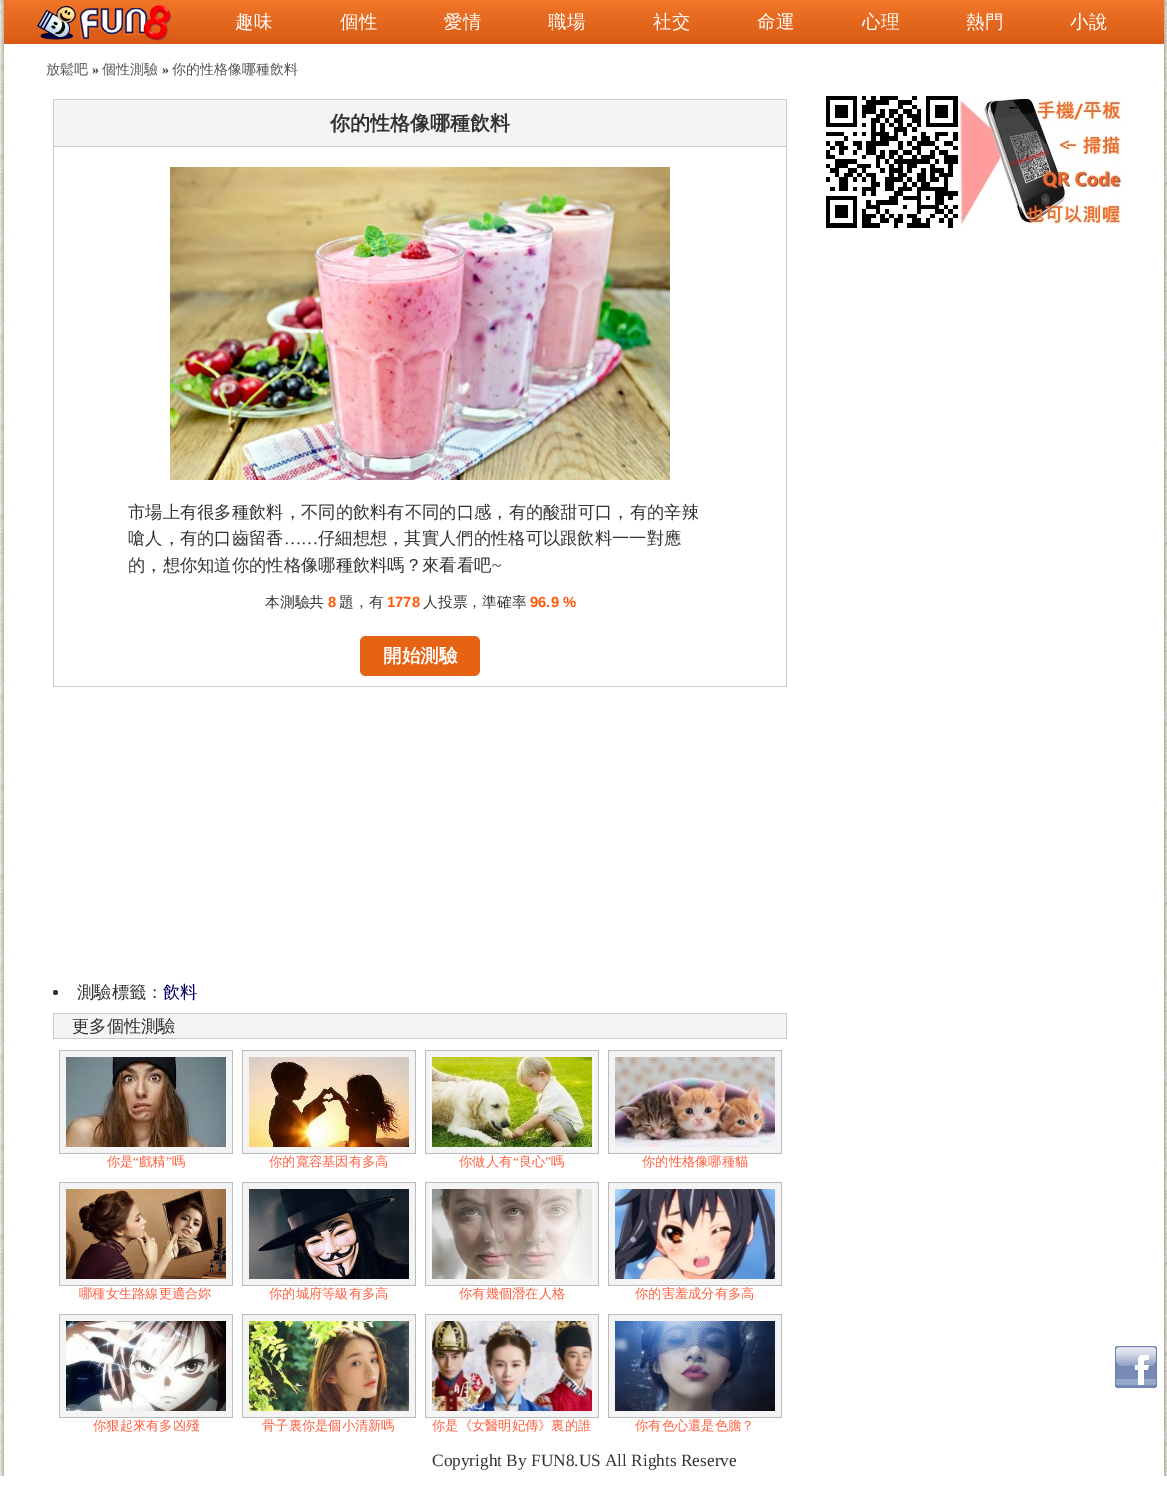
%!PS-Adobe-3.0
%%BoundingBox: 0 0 1167 1512
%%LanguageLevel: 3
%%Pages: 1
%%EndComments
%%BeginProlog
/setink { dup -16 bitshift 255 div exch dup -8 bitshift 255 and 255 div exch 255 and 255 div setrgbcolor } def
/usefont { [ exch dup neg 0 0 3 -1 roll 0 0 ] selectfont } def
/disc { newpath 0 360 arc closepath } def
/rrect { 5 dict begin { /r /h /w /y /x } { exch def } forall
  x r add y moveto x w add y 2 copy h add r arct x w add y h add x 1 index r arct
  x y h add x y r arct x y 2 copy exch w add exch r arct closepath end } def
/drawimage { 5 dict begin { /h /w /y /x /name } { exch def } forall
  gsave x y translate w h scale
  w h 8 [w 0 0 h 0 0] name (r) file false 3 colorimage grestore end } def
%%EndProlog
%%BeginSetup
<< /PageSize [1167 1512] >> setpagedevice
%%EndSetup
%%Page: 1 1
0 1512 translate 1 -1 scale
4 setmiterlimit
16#FFFFFF setink
0 0 1167 1512 rectfill
(img1.raw) 0 0 4 1476 drawimage
(img2.raw) 4 0 1160 44 drawimage
(img3.raw) 37 5 134 36 drawimage
/WenQuanYiZenHei-Medium 18.5 usefont
[
    [(趣味) 235 28]
    [(個性) 340 28]
    [(愛情) 444 28]
    [(職場) 548 28]
    [(社交) 653 28]
    [(命運) 757 28]
    [(心理) 862 28]
    [(熱門) 966 28]
    [(小說) 1070 28]
] { aload pop moveto show } forall
(img4.raw) 1164 0 3 1476 drawimage
/WenQuanYiZenHei-Medium 14 usefont
16#555555 setink
46 74 moveto (放鬆吧) show
/LiberationSerif-Bold 14 usefont
16#333333 setink
92 74 moveto (») show
/WenQuanYiZenHei-Medium 14 usefont
16#555555 setink
102 74 moveto (個性測驗) show
/LiberationSerif-Bold 14 usefont
16#333333 setink
162 74 moveto (») show
/WenQuanYiZenHei-Medium 14 usefont
16#555555 setink
172 74 moveto (你的性格像哪種飲料) show
16#CCCCCC setink
53 99 734 588 rectfill
16#F4F4F4 setink
54 100 732 46 rectfill
/WenQuanYiZenHei-Bold 20 usefont
16#333333 setink
330 130 moveto (你的性格像哪種飲料) show
16#FFFFFF setink
54 147 732 539 rectfill
(img5.raw) 170 167 500 313 drawimage
/WenQuanYiZenHei-Medium 17.3 usefont
16#333333 setink
128 518 moveto (市場上有很多種飲料，不同的飲料有不同的口感，有的酸甜可口，有的辛辣) show
128 544 moveto (嗆人，有的口齒留香) show
/LiberationSerif-Regular 17.3 usefont
284 544 moveto (……) show
/WenQuanYiZenHei-Medium 17.3 usefont
318 544 moveto (仔細想想，其實人們的性格可以跟飲料一一對應) show
128 571 moveto (的，想你知道你的性格像哪種飲料嗎？來看看吧) show
/LiberationSerif-Regular 17.3 usefont
492 571 moveto (~) show
/WenQuanYiZenHei-Medium 14.75 usefont
265 607 moveto (本測驗共) show
/LiberationSans-Bold 14.75 usefont
16#FF5706 setink
328 607 moveto (8) show
/WenQuanYiZenHei-Medium 14.75 usefont
16#333333 setink
339 607 moveto (題，有) show
/LiberationSans-Bold 14.75 usefont
16#FF5706 setink
387 607 moveto (1778) show
/WenQuanYiZenHei-Medium 14.75 usefont
16#333333 setink
423 607 moveto (人投票，準確率) show
/LiberationSans-Bold 14.75 usefont
16#FF5706 setink
530 607 moveto (96.9 %) show
16#E76314 setink
360 636 120 40 6 rrect fill
/WenQuanYiZenHei-Bold 18.5 usefont
16#FFFFFF setink
383 662 moveto (開始測驗) show
16#333333 setink
55.5 992.5 2.5 disc fill
/WenQuanYiZenHei-Medium 17.3 usefont
77 998 moveto (測驗標籤：) show
16#000066 setink
163 998 moveto (飲料) show
16#CCCCCC setink
53 1013 734 26 rectfill
16#F4F4F4 setink
54 1014 732 24 rectfill
16#333333 setink
72 1032 moveto (更多個性測驗) show
16#BBBBBB setink
59 1050 174 104 rectfill
16#F4F4F4 setink
60 1051 172 102 rectfill
(img6.raw) 66 1057 160 90 drawimage
/WenQuanYiZenHei-Medium 13.25 usefont
16#FF6040 setink
107 1166 moveto (你是) show
/LiberationSerif-Regular 13.25 usefont
133 1166 moveto (“) show
/WenQuanYiZenHei-Medium 13.25 usefont
139 1166 moveto (戲精) show
/LiberationSerif-Regular 13.25 usefont
166 1166 moveto (”) show
/WenQuanYiZenHei-Medium 13.25 usefont
172 1166 moveto (嗎) show
16#BBBBBB setink
242 1050 174 104 rectfill
16#F4F4F4 setink
243 1051 172 102 rectfill
(img7.raw) 249 1057 160 90 drawimage
16#FF6040 setink
269 1166 moveto (你的寬容基因有多高) show
16#BBBBBB setink
425 1050 174 104 rectfill
16#F4F4F4 setink
426 1051 172 102 rectfill
(img8.raw) 432 1057 160 90 drawimage
16#FF6040 setink
459 1166 moveto (你做人有) show
/LiberationSerif-Regular 13.25 usefont
513 1166 moveto (“) show
/WenQuanYiZenHei-Medium 13.25 usefont
519 1166 moveto (良心) show
/LiberationSerif-Regular 13.25 usefont
545 1166 moveto (”) show
/WenQuanYiZenHei-Medium 13.25 usefont
551 1166 moveto (嗎) show
16#BBBBBB setink
608 1050 174 104 rectfill
16#F4F4F4 setink
609 1051 172 102 rectfill
(img9.raw) 615 1057 160 90 drawimage
16#FF6040 setink
642 1166 moveto (你的性格像哪種貓) show
16#BBBBBB setink
59 1182 174 104 rectfill
16#F4F4F4 setink
60 1183 172 102 rectfill
(img10.raw) 66 1189 160 90 drawimage
16#FF6040 setink
79 1298 moveto (哪種女生路線更適合妳) show
16#BBBBBB setink
242 1182 174 104 rectfill
16#F4F4F4 setink
243 1183 172 102 rectfill
(img11.raw) 249 1189 160 90 drawimage
16#FF6040 setink
269 1298 moveto (你的城府等級有多高) show
16#BBBBBB setink
425 1182 174 104 rectfill
16#F4F4F4 setink
426 1183 172 102 rectfill
(img12.raw) 432 1189 160 90 drawimage
16#FF6040 setink
459 1298 moveto (你有幾個潛在人格) show
16#BBBBBB setink
608 1182 174 104 rectfill
16#F4F4F4 setink
609 1183 172 102 rectfill
(img13.raw) 615 1189 160 90 drawimage
16#FF6040 setink
635 1298 moveto (你的害羞成分有多高) show
16#BBBBBB setink
59 1314 174 104 rectfill
16#F4F4F4 setink
60 1315 172 102 rectfill
(img14.raw) 66 1321 160 90 drawimage
16#FF6040 setink
93 1430 moveto (你狠起來有多凶殘) show
16#BBBBBB setink
242 1314 174 104 rectfill
16#F4F4F4 setink
243 1315 172 102 rectfill
(img15.raw) 249 1321 160 90 drawimage
16#FF6040 setink
262 1430 moveto (骨子裏你是個小清新嗎) show
16#BBBBBB setink
425 1314 174 104 rectfill
16#F4F4F4 setink
426 1315 172 102 rectfill
(img16.raw) 432 1321 160 90 drawimage
16#FF6040 setink
432 1430 moveto (你是《女醫明妃傳》裏的誰) show
16#BBBBBB setink
608 1314 174 104 rectfill
16#F4F4F4 setink
609 1315 172 102 rectfill
(img17.raw) 615 1321 160 90 drawimage
16#FF6040 setink
635 1430 moveto (你有色心還是色膽？) show
(img18.raw) 826 96 132 132 drawimage
(img19.raw) 959 99 166 126 drawimage
/LiberationSerif-Regular 17.3 usefont
16#333333 setink
432 1466 moveto (Copyright By FUN8.US All Rights Reserve) show
(img20.raw) 1115 1346 42 42 drawimage
showpage
%%EOF
